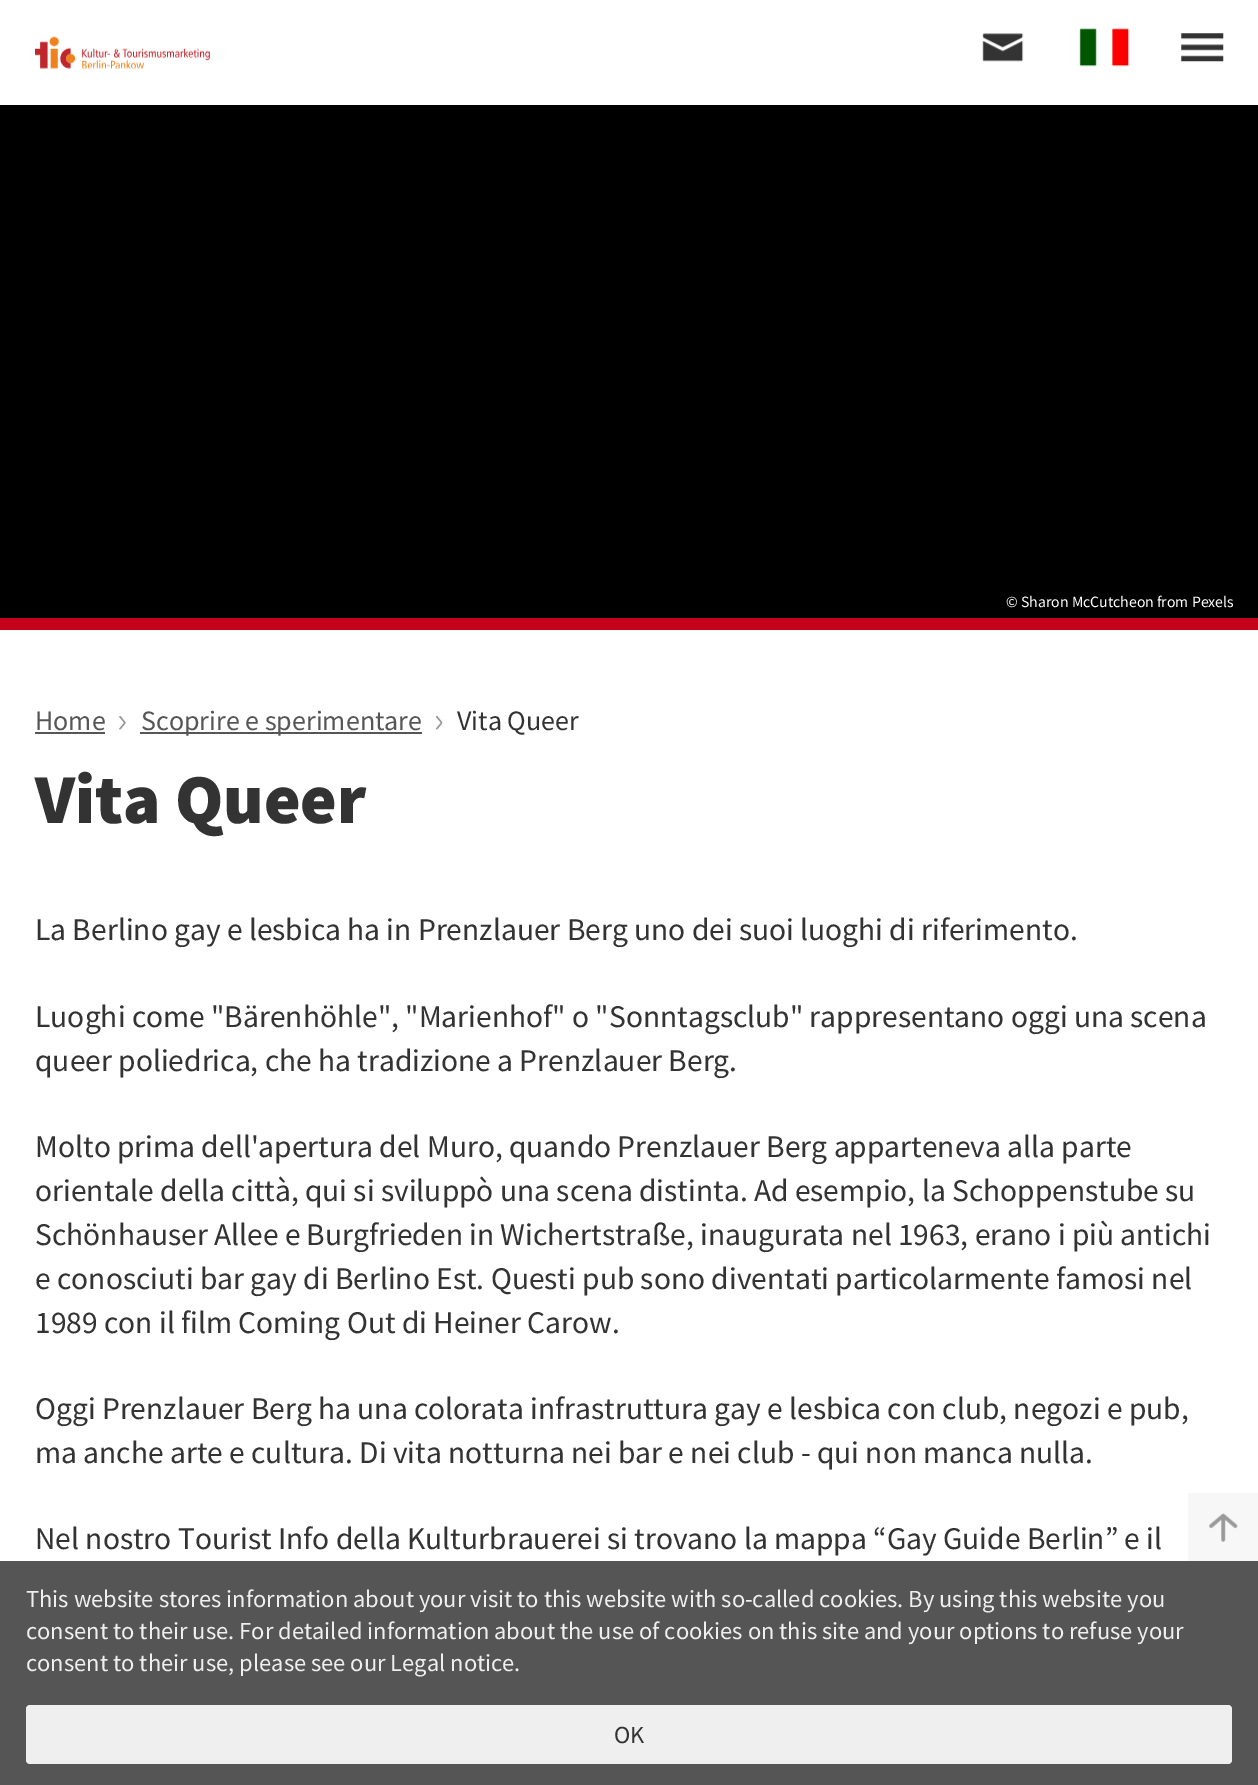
%!PS-Adobe-3.0
%%BoundingBox: 0 0 1258 1785
%%LanguageLevel: 3
%%Pages: 1
%%EndComments
%%BeginProlog
/setink { dup -16 bitshift 255 div exch dup -8 bitshift 255 and 255 div exch 255 and 255 div setrgbcolor } def
/usefont { [ exch dup neg 0 0 3 -1 roll 0 0 ] selectfont } def
/rrect { 5 dict begin { /r /h /w /y /x } { exch def } forall
  x r add y moveto x w add y 2 copy h add r arct x w add y h add x 1 index r arct
  x y h add x y r arct x y 2 copy exch w add exch r arct closepath end } def
/drawimage { 5 dict begin { /h /w /y /x /name } { exch def } forall
  gsave x y translate w h scale
  w h 8 [w 0 0 h 0 0] name (r) file false 3 colorimage grestore end } def
%%EndProlog
%%BeginSetup
<< /PageSize [1258 1785] >> setpagedevice
%%EndSetup
%%Page: 1 1
0 1785 translate 1 -1 scale
4 setmiterlimit
16#C5011B setink
0 0 1258 1785 rectfill
16#FFFFFF setink
0 0 1258 105 rectfill
(img1.raw) 982 33 42 29 drawimage
(img2.raw) 1079 28 51 39 drawimage
(img3.raw) 35 36 175 33 drawimage
(img4.raw) 1181 33 43 29 drawimage
16#000000 setink
0 105 1258 513 rectfill
/SourceSansPro-Regular 15.75 usefont
16#FFFFFF setink
1006 607 moveto (© Sharon McCutcheon from Pexels) show
0 630 1258 931 rectfill
/SourceSansPro-Regular 28 usefont
16#565656 setink
35 730 moveto (Home) show
35 732 70 2 rectfill
(img5.raw) 119 716 7 14 drawimage
140 732 282 2 rectfill
141 730 moveto (Scoprire e sperimentare) show
(img6.raw) 436 716 7 14 drawimage
16#333333 setink
457 730 moveto (Vita Queer) show
/SourceSansPro-Black 70 usefont
35 823 moveto (Vita Queer) show
/SourceSansPro-Regular 31.5 usefont
[
    [(La Berlino gay e lesbica ha in Prenzlauer Berg uno dei suoi luoghi di riferimento.) 35 940]
    [(Luoghi come "Bärenhöhle", "Marienhof" o "Sonntagsclub" rappresentano oggi una scena) 35 1027]
    [(queer poliedrica, che ha tradizione a Prenzlauer Berg.) 35 1071]
    [(Molto prima dell'apertura del Muro, quando Prenzlauer Berg apparteneva alla parte) 35 1157]
    [(orientale della città, qui si sviluppò una scena distinta. Ad esempio, la Schoppenstube su) 35 1201]
    [(Schönhauser Allee e Burgfrieden in Wichertstraße, inaugurata nel 1963, erano i più antichi) 35 1245]
    [(e conosciuti bar gay di Berlino Est. Questi pub sono diventati particolarmente famosi nel) 35 1289]
    [(1989 con il film Coming Out di Heiner Carow.) 35 1333]
    [(Oggi Prenzlauer Berg ha una colorata infrastruttura gay e lesbica con club, negozi e pub,) 35 1419]
    [(ma anche arte e cultura. Di vita notturna nei bar e nei club - qui non manca nulla.) 35 1463]
    [(Nel nostro Tourist Info della Kulturbrauerei si trovano la mappa “Gay Guide Berlin” e il) 35 1549]
] { aload pop moveto show } forall
16#F7F7F7 setink
1188 1493 70 68 rectfill
(img7.raw) 1209 1513 29 29 drawimage
16#555555 setink
0 1561 1258 224 rectfill
/SourceSansPro-Regular 24.5 usefont
16#EFEFEF setink
[
    [(This website stores information about your visit to this website with so-called cookies. By using this website you) 26 1607]
    [(consent to their use. For detailed information about the use of cookies on this site and your options to refuse your) 26 1639]
    [(consent to their use, please see our Legal notice.) 26 1671]
] { aload pop moveto show } forall
26 1705 1206 59 4 rrect fill
16#333333 setink
614 1743 moveto (OK) show
showpage
%%EOF
